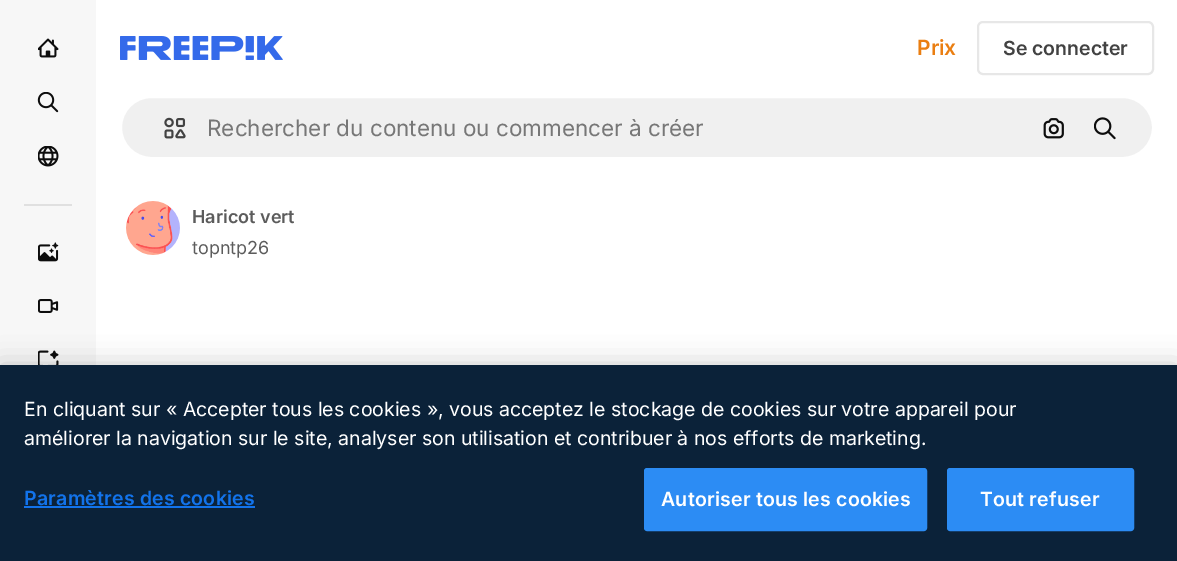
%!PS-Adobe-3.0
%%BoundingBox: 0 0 1177 561
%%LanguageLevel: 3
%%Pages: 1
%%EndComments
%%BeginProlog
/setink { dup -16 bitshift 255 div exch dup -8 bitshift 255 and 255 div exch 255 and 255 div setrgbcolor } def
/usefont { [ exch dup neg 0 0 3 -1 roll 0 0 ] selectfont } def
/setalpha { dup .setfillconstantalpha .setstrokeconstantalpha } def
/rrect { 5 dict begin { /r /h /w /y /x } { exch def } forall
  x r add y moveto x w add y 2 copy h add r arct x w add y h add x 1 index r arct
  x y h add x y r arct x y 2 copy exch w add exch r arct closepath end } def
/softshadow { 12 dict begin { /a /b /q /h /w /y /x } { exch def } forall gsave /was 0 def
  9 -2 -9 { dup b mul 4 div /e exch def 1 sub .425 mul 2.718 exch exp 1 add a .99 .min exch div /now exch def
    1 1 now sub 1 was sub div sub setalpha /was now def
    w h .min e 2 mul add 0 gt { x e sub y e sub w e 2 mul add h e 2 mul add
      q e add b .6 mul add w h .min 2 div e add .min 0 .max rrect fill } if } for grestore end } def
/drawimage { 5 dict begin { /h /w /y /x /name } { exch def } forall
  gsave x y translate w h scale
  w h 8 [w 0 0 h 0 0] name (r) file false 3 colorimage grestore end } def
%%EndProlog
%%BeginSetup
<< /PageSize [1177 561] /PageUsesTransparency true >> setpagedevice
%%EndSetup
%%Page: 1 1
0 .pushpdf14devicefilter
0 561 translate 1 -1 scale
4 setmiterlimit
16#FFFFFF setink
0 0 1177 561 rectfill
16#F7F7F7 setink
0 0 96 365 rectfill
(img1.raw) 38 38 21 20 drawimage
(img2.raw) 37 92 22 21 drawimage
(img3.raw) 38 146 21 21 drawimage
16#E0E0E0 setink
24 204 48 2 rectfill
(img4.raw) 38 242 21 20 drawimage
(img5.raw) 38 299 21 14 drawimage
(img6.raw) 38 350 21 15 drawimage
(img7.raw) 120 36 163 24 drawimage
/Inter-SemiBold 21 usefont
16#EA7E11 setink
917 55 moveto (Prix) show
16#E7E7E7 setink
2 setlinewidth
978 22 175 52 5 rrect stroke
/Inter-SemiBold 19.5 usefont
16#424242 setink
1003 55 moveto (Se connecter) show
16#F0F0F0 setink
121 97 1032 61 30.5 rrect gsave fill grestore
16#FFFFFF setink
stroke
(img8.raw) 164 117 22 22 drawimage
/Inter-Regular 22.5 usefont
16#777777 setink
207 136 moveto (Rechercher du contenu ou commencer à créer) show
(img9.raw) 1043 118 21 21 drawimage
(img10.raw) 1094 117 22 23 drawimage
(img11.raw) 126 201 54 54 drawimage
/Inter-SemiBold 18 usefont
16#5C5C5C setink
192 223 moveto (Haricot vert) show
/Inter-Regular 18 usefont
192 254 moveto (topntp26) show
16#000000 setink
0 365 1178 196 0 13.5 0.2 softshadow
16#0B2239 setink
0 365 1177 196 rectfill
/Inter-Regular 19.5 usefont
16#FFFFFF setink
24 416 moveto (En cliquant sur « Accepter tous les cookies », vous acceptez le stockage de cookies sur votre appareil pour) show
24 445 moveto (améliorer la navigation sur le site, analyser son utilisation et contribuer à nos efforts de marketing.) show
/Inter-SemiBold 19.5 usefont
16#1273EB setink
24 505 moveto 0.2 0 (Paramètres des cookies) ashow
24 506 231 2 rectfill
16#2C8CF4 setink
645 469 281 61 2 rrect gsave fill grestore
stroke
16#FFFFFF setink
661 506 moveto 0.2 0 (Autoriser tous les cookies) ashow
16#2C8CF4 setink
948 469 185 61 2 rrect gsave fill grestore
stroke
16#FFFFFF setink
980 506 moveto 0.2 0 (Tout refuser) ashow
.poppdf14devicefilter showpage
%%EOF
